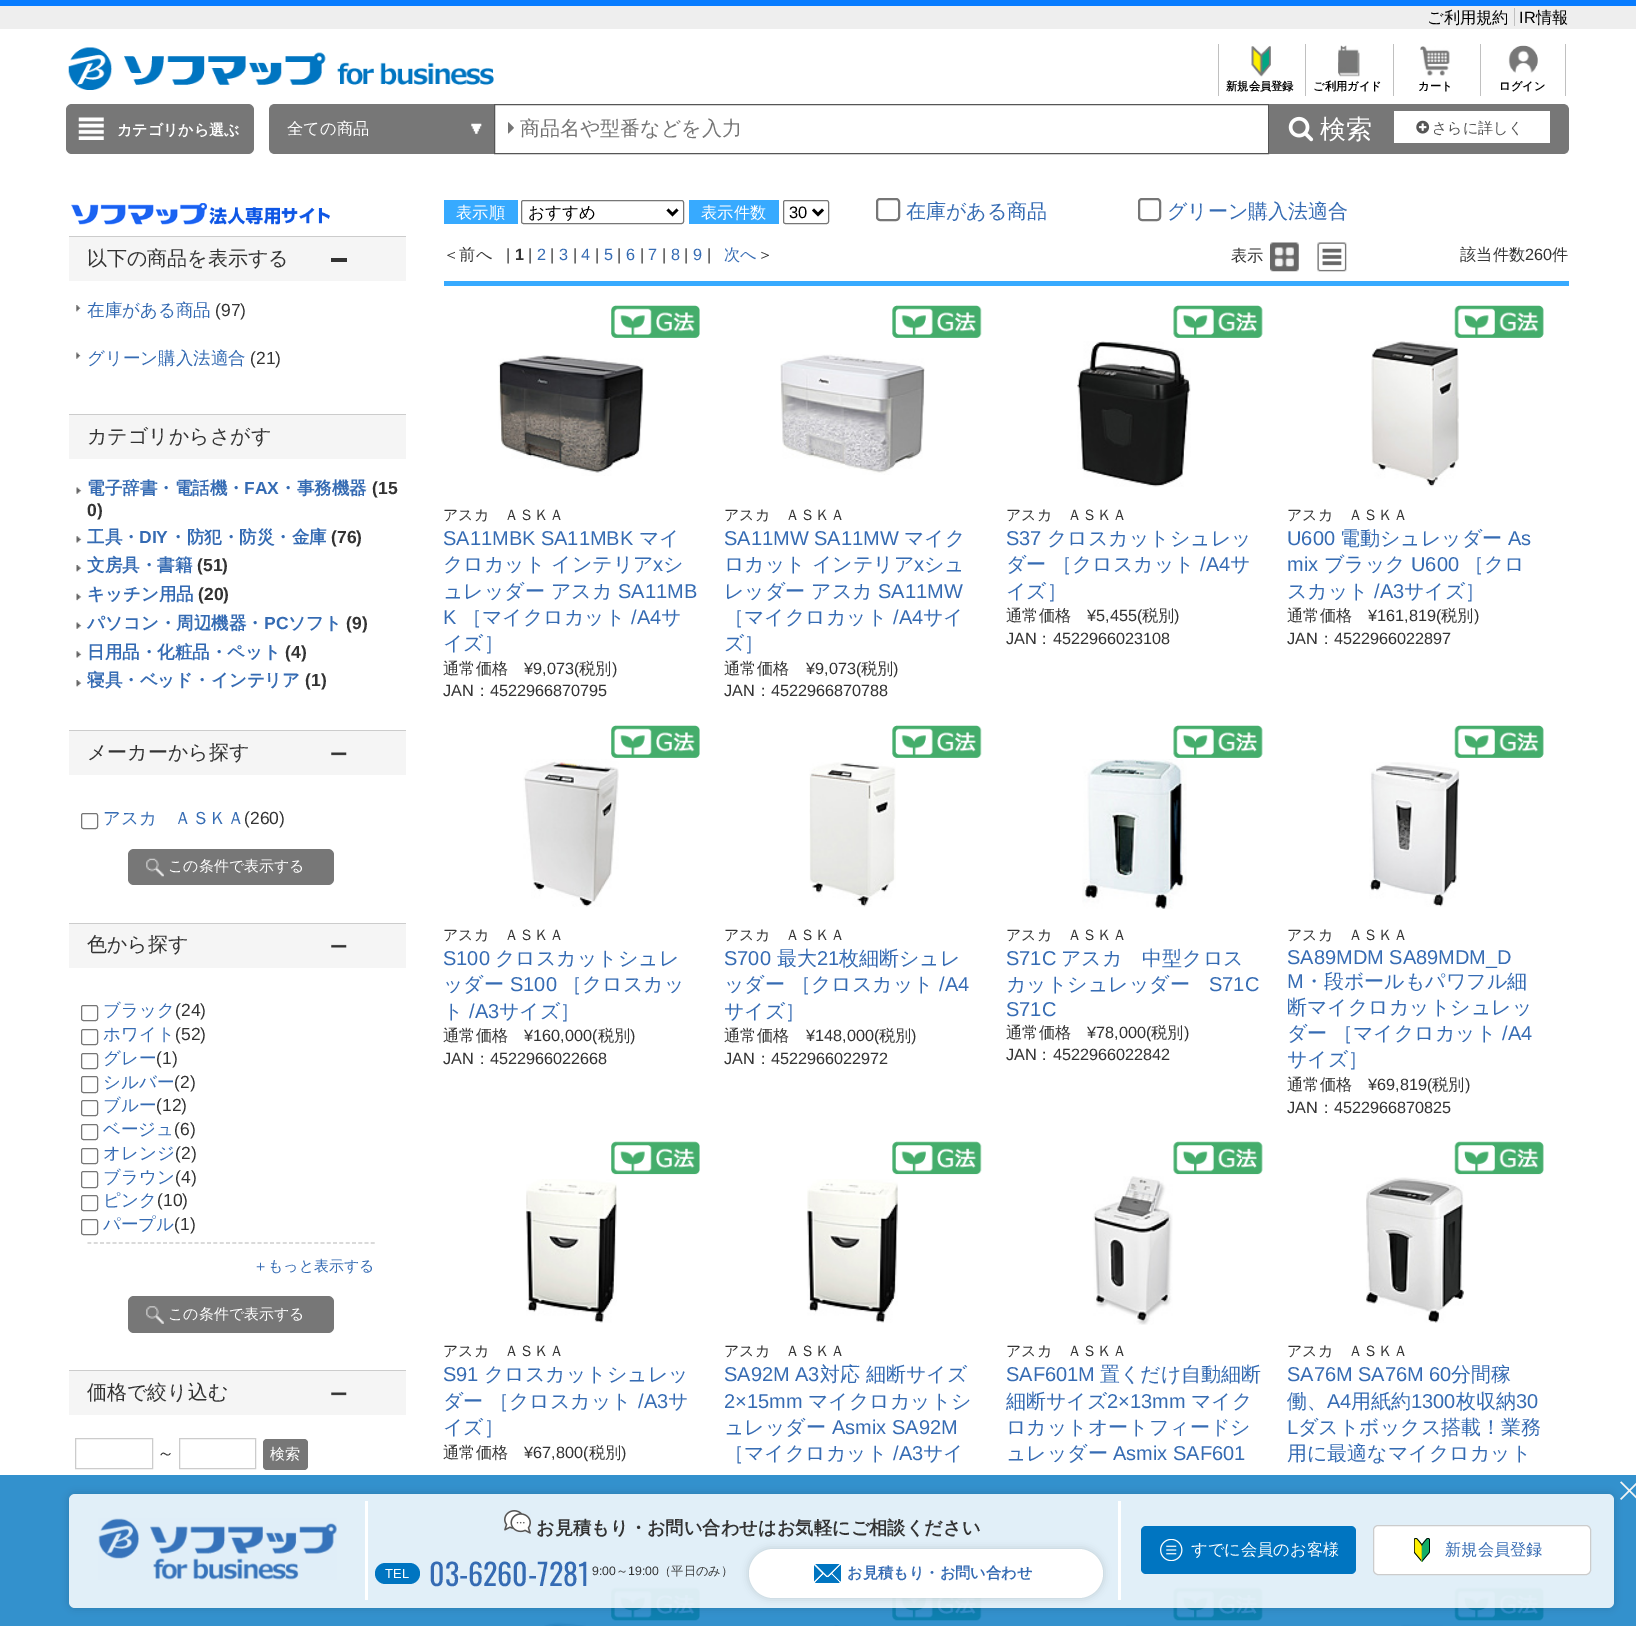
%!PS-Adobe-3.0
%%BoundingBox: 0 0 1636 1626
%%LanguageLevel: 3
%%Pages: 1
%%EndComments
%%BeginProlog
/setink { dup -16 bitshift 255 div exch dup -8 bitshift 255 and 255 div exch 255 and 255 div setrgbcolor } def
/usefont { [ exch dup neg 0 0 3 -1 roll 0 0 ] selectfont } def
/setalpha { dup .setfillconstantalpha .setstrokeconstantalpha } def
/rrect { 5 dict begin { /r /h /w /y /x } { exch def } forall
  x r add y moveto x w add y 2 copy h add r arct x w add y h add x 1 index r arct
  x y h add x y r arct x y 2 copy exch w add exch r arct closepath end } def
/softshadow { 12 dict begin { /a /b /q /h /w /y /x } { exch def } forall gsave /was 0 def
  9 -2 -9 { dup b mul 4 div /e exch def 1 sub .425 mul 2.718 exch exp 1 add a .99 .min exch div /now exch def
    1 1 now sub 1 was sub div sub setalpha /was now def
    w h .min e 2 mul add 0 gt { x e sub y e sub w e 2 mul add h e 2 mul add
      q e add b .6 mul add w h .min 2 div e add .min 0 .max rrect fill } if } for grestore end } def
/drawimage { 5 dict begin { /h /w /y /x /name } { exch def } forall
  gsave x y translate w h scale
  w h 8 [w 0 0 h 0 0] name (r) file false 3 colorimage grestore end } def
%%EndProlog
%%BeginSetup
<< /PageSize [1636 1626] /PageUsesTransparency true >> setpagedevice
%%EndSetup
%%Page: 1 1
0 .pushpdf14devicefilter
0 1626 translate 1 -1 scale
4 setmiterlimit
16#FFFFFF setink
0 0 1636 1626 rectfill
16#087CFF setink
0 0 1636 6 rectfill
16#EEEEEE setink
0 6 1636 23 rectfill
/WenQuanYiZenHei-Medium 16.25 usefont
16#000000 setink
1427 23 moveto (ご利用規約) show
16#C0C0C0 setink
1514 8 1 18 rectfill
/LiberationSans-Regular 16.25 usefont
16#000000 setink
1519 23 moveto (IR) show
/WenQuanYiZenHei-Medium 16.25 usefont
1536 23 moveto (情報) show
(img1.raw) 68 47 426 43 drawimage
16#C0C0C0 setink
1218 44 1 52 rectfill
(img2.raw) 1251 46 20 31 drawimage
/WenQuanYiZenHei-Bold 11.25 usefont
16#000000 setink
1226 90 moveto (新規会員登録) show
16#C0C0C0 setink
1305 44 1 52 rectfill
(img3.raw) 1338 45 22 32 drawimage
16#000000 setink
1313 90 moveto (ご利用ガイド) show
16#C0C0C0 setink
1393 44 1 52 rectfill
(img4.raw) 1420 46 30 30 drawimage
16#000000 setink
1418 90 moveto (カート) show
16#C0C0C0 setink
1565 44 1 52 rectfill
1480 44 1 52 rectfill
(img5.raw) 1508 45 30 28 drawimage
16#000000 setink
1499 90 moveto (ログイン) show
16#777777 setink
66 104 188 50 6 rrect fill
(img6.raw) 78 117 26 23 drawimage
/WenQuanYiZenHei-Bold 15 usefont
16#FFFFFF setink
117 135 moveto (カテゴリから選ぶ) show
16#777777 setink
275 104 moveto 494 104 lineto 494 154 lineto 275 154 lineto 271.5 154 269 151.5 269 148 curveto 269 110 lineto 269 106.5 271.5 104 275 104 curveto closepath fill
(img7.raw) 471 123 11 11 drawimage
/WenQuanYiZenHei-Medium 16.25 usefont
16#FFFFFF setink
287 134 moveto (全ての商品) show
16#555555 setink
494.5 104.5 774 49 rectstroke
(img8.raw) 508 122 6 12 drawimage
/WenQuanYiZenHei-Medium 20 usefont
16#757575 setink
520 135 moveto (商品名や型番などを入力) show
16#777777 setink
1269 104 125 50 rectfill
(img9.raw) 1288 116 26 26 drawimage
/WenQuanYiZenHei-Medium 26 usefont
16#FFFFFF setink
1320 138 moveto (検索) show
16#777777 setink
1394 104 moveto 1563 104 lineto 1566.5 104 1569 106.5 1569 110 curveto 1569 148 lineto 1569 151.5 1566.5 154 1563 154 curveto 1394 154 lineto closepath fill
16#FFFFFF setink
1394 111 156 32 rectfill
(img10.raw) 1416 120 14 14 drawimage
/WenQuanYiZenHei-Medium 15 usefont
16#555555 setink
1432 133 moveto (さらに詳しく) show
(img11.raw) 71 203 259 22 drawimage
[
    [69 237 337 44 16#F5F5F5]
    [331 258 16 4 16#333333]
    [69 236 337 1 16#CCCCCC]
] { aload pop setink rectfill } forall
/WenQuanYiZenHei-Medium 20 usefont
16#333333 setink
87 265 moveto (以下の商品を表示する) show
(img12.raw) 76 305 5 7 drawimage
/WenQuanYiZenHei-Medium 17.5 usefont
16#356BB3 setink
87 316 moveto (在庫がある商品) show
/LiberationSans-Regular 17.5 usefont
16#333333 setink
215 316 moveto (\(97\)) show
(img13.raw) 76 352 5 7 drawimage
/WenQuanYiZenHei-Medium 17.5 usefont
16#356BB3 setink
87 364 moveto (グリーン購入法適合) show
/LiberationSans-Regular 17.5 usefont
16#333333 setink
250 364 moveto (\(21\)) show
16#F5F5F5 setink
69 415 337 44 rectfill
16#CCCCCC setink
69 414 337 1 rectfill
/WenQuanYiZenHei-Medium 20 usefont
16#333333 setink
87 443 moveto (カテゴリからさがす) show
(img14.raw) 76 487 6 7 drawimage
/WenQuanYiZenHei-Bold 17.5 usefont
16#356BB3 setink
87 494 moveto (電子辞書・電話機・) show
/LiberationSans-Bold 17.5 usefont
244 494 moveto (FAX) show
/WenQuanYiZenHei-Bold 17.5 usefont
279 494 moveto (・事務機器) show
/LiberationSans-Bold 17.5 usefont
16#333333 setink
372 494 moveto (\(15) show
87 516 moveto (0\)) show
(img15.raw) 76 536 6 7 drawimage
/WenQuanYiZenHei-Bold 17.5 usefont
16#356BB3 setink
87 543 moveto (工具・) show
/LiberationSans-Bold 17.5 usefont
139 543 moveto (DIY) show
/WenQuanYiZenHei-Bold 17.5 usefont
169 543 moveto (・防犯・防災・金庫) show
/LiberationSans-Bold 17.5 usefont
16#333333 setink
331 543 moveto (\(76\)) show
(img16.raw) 76 565 6 7 drawimage
/WenQuanYiZenHei-Bold 17.5 usefont
16#356BB3 setink
87 571 moveto (文房具・書籍) show
/LiberationSans-Bold 17.5 usefont
16#333333 setink
197 571 moveto (\(51\)) show
(img17.raw) 76 593 6 8 drawimage
/WenQuanYiZenHei-Bold 17.5 usefont
16#356BB3 setink
87 600 moveto (キッチン用品) show
/LiberationSans-Bold 17.5 usefont
16#333333 setink
198 600 moveto (\(20\)) show
(img14.raw) 76 622 6 7 drawimage
/WenQuanYiZenHei-Bold 17.5 usefont
16#356BB3 setink
87 629 moveto (パソコン・周辺機器・) show
/LiberationSans-Bold 17.5 usefont
264 629 moveto (PC) show
/WenQuanYiZenHei-Bold 17.5 usefont
288 629 moveto (ソフト) show
/LiberationSans-Bold 17.5 usefont
16#333333 setink
346 629 moveto (\(9\)) show
(img15.raw) 76 651 6 7 drawimage
/WenQuanYiZenHei-Bold 17.5 usefont
16#356BB3 setink
87 658 moveto (日用品・化粧品・ペット) show
/LiberationSans-Bold 17.5 usefont
16#333333 setink
285 658 moveto (\(4\)) show
(img16.raw) 76 680 6 7 drawimage
/WenQuanYiZenHei-Bold 17.5 usefont
16#356BB3 setink
87 686 moveto (寝具・ベッド・インテリア) show
/LiberationSans-Bold 17.5 usefont
16#333333 setink
305 686 moveto (\(1\)) show
16#F5F5F5 setink
69 731 337 44 rectfill
(img18.raw) 331 752 16 4 drawimage
16#CCCCCC setink
69 730 337 1 rectfill
/WenQuanYiZenHei-Medium 20 usefont
16#333333 setink
87 759 moveto (メーカーから探す) show
16#767676 setink
81.5 813.5 16 15 2 rrect stroke
/WenQuanYiZenHei-Medium 17.5 usefont
16#356BB3 setink
103 824 moveto (アスカ　ＡＳＫＡ) show
/LiberationSans-Regular 17.5 usefont
16#333333 setink
244 824 moveto (\(260\)) show
16#777777 setink
128 849 206 36 6 rrect fill
(img19.raw) 146 858 18 19 drawimage
/WenQuanYiZenHei-Medium 15 usefont
16#FFFFFF setink
168 871 moveto (この条件で表示する) show
16#F5F5F5 setink
69 924 337 44 rectfill
(img20.raw) 331 944 16 4 drawimage
16#CCCCCC setink
69 923 337 1 rectfill
/WenQuanYiZenHei-Medium 20 usefont
16#333333 setink
87 951 moveto (色から探す) show
16#767676 setink
81.5 1005.5 16 15 2 rrect stroke
/WenQuanYiZenHei-Medium 17.5 usefont
16#356BB3 setink
103 1016 moveto (ブラック) show
/LiberationSans-Regular 17.5 usefont
16#333333 setink
175 1016 moveto (\(24\)) show
16#767676 setink
81.5 1029.5 16 15 2 rrect stroke
/WenQuanYiZenHei-Medium 17.5 usefont
16#356BB3 setink
103 1040 moveto (ホワイト) show
/LiberationSans-Regular 17.5 usefont
16#333333 setink
175 1040 moveto (\(52\)) show
16#767676 setink
81.5 1053.5 16 15 2 rrect stroke
/WenQuanYiZenHei-Medium 17.5 usefont
16#356BB3 setink
103 1064 moveto (グレー) show
/LiberationSans-Regular 17.5 usefont
16#333333 setink
156 1064 moveto (\(1\)) show
16#767676 setink
81.5 1076.5 16 16 2 rrect stroke
/WenQuanYiZenHei-Medium 17.5 usefont
16#356BB3 setink
103 1088 moveto (シルバー) show
/LiberationSans-Regular 17.5 usefont
16#333333 setink
174 1088 moveto (\(2\)) show
16#767676 setink
81.5 1100.5 16 15 2 rrect stroke
/WenQuanYiZenHei-Medium 17.5 usefont
16#356BB3 setink
103 1111 moveto (ブルー) show
/LiberationSans-Regular 17.5 usefont
16#333333 setink
156 1111 moveto (\(12\)) show
16#767676 setink
81.5 1124.5 16 15 2 rrect stroke
/WenQuanYiZenHei-Medium 17.5 usefont
16#356BB3 setink
103 1135 moveto (ベージュ) show
/LiberationSans-Regular 17.5 usefont
16#333333 setink
174 1135 moveto (\(6\)) show
16#767676 setink
81.5 1148.5 16 15 2 rrect stroke
/WenQuanYiZenHei-Medium 17.5 usefont
16#356BB3 setink
103 1159 moveto (オレンジ) show
/LiberationSans-Regular 17.5 usefont
16#333333 setink
175 1159 moveto (\(2\)) show
16#767676 setink
81.5 1171.5 16 16 2 rrect stroke
/WenQuanYiZenHei-Medium 17.5 usefont
16#356BB3 setink
103 1183 moveto (ブラウン) show
/LiberationSans-Regular 17.5 usefont
16#333333 setink
175 1183 moveto (\(4\)) show
16#767676 setink
81.5 1195.5 16 15 2 rrect stroke
/WenQuanYiZenHei-Medium 17.5 usefont
16#356BB3 setink
103 1206 moveto (ピンク) show
/LiberationSans-Regular 17.5 usefont
16#333333 setink
157 1206 moveto (\(10\)) show
16#767676 setink
81.5 1219.5 16 15 2 rrect stroke
/WenQuanYiZenHei-Medium 17.5 usefont
16#356BB3 setink
103 1230 moveto (パープル) show
/LiberationSans-Regular 17.5 usefont
16#333333 setink
174 1230 moveto (\(1\)) show
16#CCCCCC setink
1.2 setlinewidth
[3.75 2.55] 0 setdash
87.5 1243 moveto 375 1243 lineto stroke
/WenQuanYiZenHei-Medium 15 usefont
16#356BB3 setink
253 1271 moveto (＋もっと表示する) show
16#777777 setink
128 1296 206 37 6 rrect fill
(img21.raw) 146 1306 18 18 drawimage
16#FFFFFF setink
168 1319 moveto (この条件で表示する) show
16#F5F5F5 setink
69 1371 337 44 rectfill
(img18.raw) 331 1392 16 4 drawimage
16#CCCCCC setink
69 1370 337 1 rectfill
/WenQuanYiZenHei-Medium 20 usefont
16#333333 setink
87 1399 moveto (価格で絞り込む) show
16#CCCCCC setink
1 setlinewidth
[] 0 setdash
75.5 1438.5 77 30 rectstroke
/WenQuanYiZenHei-Medium 17.5 usefont
16#333333 setink
157 1459 moveto (～) show
16#CCCCCC setink
179.5 1438.5 76 30 rectstroke
16#777777 setink
263 1439 45 31 4 rrect fill
/WenQuanYiZenHei-Medium 15 usefont
16#FFFFFF setink
270 1459 moveto (検索) show
16#37AAFF setink
444 200 74 24 rectfill
/WenQuanYiZenHei-Medium 16.25 usefont
16#FFFFFF setink
456 218 moveto (表示順) show
16#767676 setink
521.5 200.5 162 23 2 rrect stroke
16#000000 setink
2.5 setlinewidth
667.5 209.5 moveto 672.5 214.5 lineto 677.5 209.5 lineto stroke
/WenQuanYiZenHei-Medium 16.5 usefont
528 218 moveto (おすすめ) show
16#37AAFF setink
689 200 90 24 rectfill
/WenQuanYiZenHei-Medium 16.25 usefont
16#FFFFFF setink
701 218 moveto (表示件数) show
16#767676 setink
1 setlinewidth
783.5 200.5 45 23 2 rrect stroke
16#000000 setink
2.5 setlinewidth
813 209.5 moveto 818 214.5 lineto 823 209.5 lineto stroke
/LiberationSans-Regular 16.5 usefont
789 218 moveto (30) show
16#767676 setink
2 setlinewidth
877 199 22 21 3 rrect stroke
/WenQuanYiZenHei-Medium 20 usefont
16#356BB3 setink
906 218 moveto (在庫がある商品) show
16#767676 setink
1139 199 21 21 3 rrect stroke
16#356BB3 setink
1167 218 moveto (グリーン購入法適合) show
/WenQuanYiZenHei-Medium 16.25 usefont
16#333333 setink
443 260 moveto (＜前へ) show
/LiberationSans-Regular 16.25 usefont
506 260 moveto (|) show
/LiberationSans-Bold 16.25 usefont
515 260 moveto (1) show
/LiberationSans-Regular 16.25 usefont
528 260 moveto (|) show
16#356BB3 setink
537 260 moveto (2) show
16#333333 setink
550 260 moveto (|) show
16#356BB3 setink
559 260 moveto (3) show
16#333333 setink
573 260 moveto (|) show
16#356BB3 setink
581 260 moveto (4) show
16#333333 setink
595 260 moveto (|) show
16#356BB3 setink
604 260 moveto (5) show
16#333333 setink
617 260 moveto (|) show
16#356BB3 setink
626 260 moveto (6) show
16#333333 setink
640 260 moveto (|) show
16#356BB3 setink
648 260 moveto (7) show
16#333333 setink
662 260 moveto (|) show
16#356BB3 setink
671 260 moveto (8) show
16#333333 setink
684 260 moveto (|) show
16#356BB3 setink
693 260 moveto (9) show
16#333333 setink
707 260 moveto (|) show
/WenQuanYiZenHei-Medium 16.25 usefont
16#356BB3 setink
724 260 moveto (次へ) show
16#333333 setink
757 260 moveto (＞) show
1231 261 moveto (表示) show
(img22.raw) 1270 242 29 30 drawimage
(img23.raw) 1317 242 30 30 drawimage
1460 260 moveto (該当件数) show
/LiberationSans-Regular 16.25 usefont
1525 260 moveto (260) show
/WenQuanYiZenHei-Medium 16.25 usefont
1552 260 moveto (件) show
16#37AAFF setink
444 281 1125 5 rectfill
(img24.raw) 611 305 89 33 drawimage
(img25.raw) 498 355 146 121 drawimage
/WenQuanYiZenHei-Medium 15 usefont
16#333333 setink
443 520 moveto (アスカ　ＡＳＫＡ) show
/LiberationSans-Regular 20 usefont
16#356BB3 setink
443 545 moveto (SA11MBK SA11MBK) show
/WenQuanYiZenHei-Medium 20 usefont
639 545 moveto (マイ) show
443 571 moveto (クロカット インテリア) show
/LiberationSans-Regular 20 usefont
653 571 moveto (x) show
/WenQuanYiZenHei-Medium 20 usefont
663 571 moveto (シ) show
443 598 moveto (ュレッダー アスカ) show
/LiberationSans-Regular 20 usefont
618 598 moveto (SA11MB) show
443 624 moveto (K) show
/WenQuanYiZenHei-Medium 20 usefont
462 624 moveto (［マイクロカット) show
/LiberationSans-Regular 20 usefont
631 624 moveto (/A4) show
/WenQuanYiZenHei-Medium 20 usefont
661 624 moveto (サ) show
443 650 moveto (イズ］) show
/WenQuanYiZenHei-Medium 16.25 usefont
16#333333 setink
443 674 moveto (通常価格) show
/LiberationSans-Regular 16.25 usefont
524 674 moveto (¥9,073\() show
/WenQuanYiZenHei-Medium 16.25 usefont
579 674 moveto (税別) show
/LiberationSans-Regular 16.25 usefont
612 674 moveto (\)) show
443 696 moveto (JAN) show
/WenQuanYiZenHei-Medium 16.25 usefont
474 696 moveto (：) show
/LiberationSans-Regular 16.25 usefont
490 696 moveto (4522966870795) show
(img26.raw) 892 305 90 33 drawimage
(img27.raw) 780 354 145 121 drawimage
/WenQuanYiZenHei-Medium 15 usefont
724 520 moveto (アスカ　ＡＳＫＡ) show
/LiberationSans-Regular 20 usefont
16#356BB3 setink
724 545 moveto (SA11MW SA11MW) show
/WenQuanYiZenHei-Medium 20 usefont
904 545 moveto (マイク) show
724 571 moveto (ロカット インテリア) show
/LiberationSans-Regular 20 usefont
914 571 moveto (x) show
/WenQuanYiZenHei-Medium 20 usefont
924 571 moveto (シュ) show
724 598 moveto (レッダー アスカ) show
/LiberationSans-Regular 20 usefont
878 598 moveto (SA11MW) show
/WenQuanYiZenHei-Medium 20 usefont
724 624 moveto (［マイクロカット) show
/LiberationSans-Regular 20 usefont
893 624 moveto (/A4) show
/WenQuanYiZenHei-Medium 20 usefont
923 624 moveto (サイ) show
724 650 moveto (ズ］) show
/WenQuanYiZenHei-Medium 16.25 usefont
16#333333 setink
724 674 moveto (通常価格) show
/LiberationSans-Regular 16.25 usefont
806 674 moveto (¥9,073\() show
/WenQuanYiZenHei-Medium 16.25 usefont
861 674 moveto (税別) show
/LiberationSans-Regular 16.25 usefont
893 674 moveto (\)) show
724 696 moveto (JAN) show
/WenQuanYiZenHei-Medium 16.25 usefont
755 696 moveto (：) show
/LiberationSans-Regular 16.25 usefont
771 696 moveto (4522966870788) show
(img28.raw) 1173 305 90 33 drawimage
(img29.raw) 1077 341 114 146 drawimage
/WenQuanYiZenHei-Medium 15 usefont
1006 520 moveto (アスカ　ＡＳＫＡ) show
/LiberationSans-Regular 20 usefont
16#356BB3 setink
1006 545 moveto (S37) show
/WenQuanYiZenHei-Medium 20 usefont
[
    [(クロスカットシュレッ) 1047 545]
    [(ダー) 1006 571]
    [(［クロスカット) 1052 571]
] { aload pop moveto show } forall
/LiberationSans-Regular 20 usefont
1200 571 moveto (/A4) show
/WenQuanYiZenHei-Medium 20 usefont
1230 571 moveto (サ) show
1006 598 moveto (イズ］) show
/WenQuanYiZenHei-Medium 16.25 usefont
16#333333 setink
1006 621 moveto (通常価格) show
/LiberationSans-Regular 16.25 usefont
1087 621 moveto (¥5,455\() show
/WenQuanYiZenHei-Medium 16.25 usefont
1142 621 moveto (税別) show
/LiberationSans-Regular 16.25 usefont
1174 621 moveto (\)) show
1006 644 moveto (JAN) show
/WenQuanYiZenHei-Medium 16.25 usefont
1036 644 moveto (：) show
/LiberationSans-Regular 16.25 usefont
1053 644 moveto (4522966023108) show
(img30.raw) 1454 305 90 33 drawimage
(img31.raw) 1371 341 88 146 drawimage
/WenQuanYiZenHei-Medium 15 usefont
1287 520 moveto (アスカ　ＡＳＫＡ) show
/LiberationSans-Regular 20 usefont
16#356BB3 setink
1287 545 moveto (U600) show
/WenQuanYiZenHei-Medium 20 usefont
1340 545 moveto (電動シュレッダー) show
/LiberationSans-Regular 20 usefont
1508 545 moveto (As) show
1287 571 moveto (mix) show
/WenQuanYiZenHei-Medium 20 usefont
1324 571 moveto (ブラック) show
/LiberationSans-Regular 20 usefont
1411 571 moveto (U600) show
/WenQuanYiZenHei-Medium 20 usefont
1464 571 moveto (［クロ) show
1287 598 moveto (スカット) show
/LiberationSans-Regular 20 usefont
1374 598 moveto (/A3) show
/WenQuanYiZenHei-Medium 20 usefont
1404 598 moveto (サイズ］) show
/WenQuanYiZenHei-Medium 16.25 usefont
16#333333 setink
1287 621 moveto (通常価格) show
/LiberationSans-Regular 16.25 usefont
1368 621 moveto (¥161,819\() show
/WenQuanYiZenHei-Medium 16.25 usefont
1441 621 moveto (税別) show
/LiberationSans-Regular 16.25 usefont
1474 621 moveto (\)) show
1287 644 moveto (JAN) show
/WenQuanYiZenHei-Medium 16.25 usefont
1318 644 moveto (：) show
/LiberationSans-Regular 16.25 usefont
1334 644 moveto (4522966022897) show
(img24.raw) 611 725 89 33 drawimage
(img32.raw) 523 759 96 148 drawimage
/WenQuanYiZenHei-Medium 15 usefont
443 940 moveto (アスカ　ＡＳＫＡ) show
/LiberationSans-Regular 20 usefont
16#356BB3 setink
443 965 moveto (S100) show
/WenQuanYiZenHei-Medium 20 usefont
495 965 moveto (クロスカットシュレ) show
443 991 moveto (ッダー) show
/LiberationSans-Regular 20 usefont
510 991 moveto (S100) show
/WenQuanYiZenHei-Medium 20 usefont
562 991 moveto (［クロスカッ) show
443 1018 moveto (ト) show
/LiberationSans-Regular 20 usefont
469 1018 moveto (/A3) show
/WenQuanYiZenHei-Medium 20 usefont
499 1018 moveto (サイズ］) show
/WenQuanYiZenHei-Medium 16.25 usefont
16#333333 setink
443 1041 moveto (通常価格) show
/LiberationSans-Regular 16.25 usefont
524 1041 moveto (¥160,000\() show
/WenQuanYiZenHei-Medium 16.25 usefont
598 1041 moveto (税別) show
/LiberationSans-Regular 16.25 usefont
630 1041 moveto (\)) show
443 1064 moveto (JAN) show
/WenQuanYiZenHei-Medium 16.25 usefont
474 1064 moveto (：) show
/LiberationSans-Regular 16.25 usefont
490 1064 moveto (4522966022668) show
(img26.raw) 892 725 90 33 drawimage
(img33.raw) 809 762 87 145 drawimage
/WenQuanYiZenHei-Medium 15 usefont
724 940 moveto (アスカ　ＡＳＫＡ) show
/LiberationSans-Regular 20 usefont
16#356BB3 setink
724 965 moveto (S700) show
/WenQuanYiZenHei-Medium 20 usefont
777 965 moveto (最大) show
/LiberationSans-Regular 20 usefont
817 965 moveto (21) show
/WenQuanYiZenHei-Medium 20 usefont
[
    [(枚細断シュレ) 839 965]
    [(ッダー) 724 991]
    [(［クロスカット) 791 991]
] { aload pop moveto show } forall
/LiberationSans-Regular 20 usefont
939 991 moveto (/A4) show
/WenQuanYiZenHei-Medium 20 usefont
724 1018 moveto (サイズ］) show
/WenQuanYiZenHei-Medium 16.25 usefont
16#333333 setink
724 1041 moveto (通常価格) show
/LiberationSans-Regular 16.25 usefont
806 1041 moveto (¥148,000\() show
/WenQuanYiZenHei-Medium 16.25 usefont
879 1041 moveto (税別) show
/LiberationSans-Regular 16.25 usefont
911 1041 moveto (\)) show
724 1064 moveto (JAN) show
/WenQuanYiZenHei-Medium 16.25 usefont
755 1064 moveto (：) show
/LiberationSans-Regular 16.25 usefont
771 1064 moveto (4522966022972) show
(img28.raw) 1173 725 90 33 drawimage
(img34.raw) 1082 759 105 150 drawimage
/WenQuanYiZenHei-Medium 15 usefont
1006 940 moveto (アスカ　ＡＳＫＡ) show
/LiberationSans-Regular 20 usefont
16#356BB3 setink
1006 965 moveto (S71C) show
/WenQuanYiZenHei-Medium 20 usefont
1061 965 moveto (アスカ　中型クロス) show
1006 991 moveto (カットシュレッダー) show
/LiberationSans-Regular 20 usefont
1209 991 moveto (S71C) show
1006 1016 moveto (S71C) show
/WenQuanYiZenHei-Medium 16.25 usefont
16#333333 setink
1006 1038 moveto (通常価格) show
/LiberationSans-Regular 16.25 usefont
1087 1038 moveto (¥78,000\() show
/WenQuanYiZenHei-Medium 16.25 usefont
1151 1038 moveto (税別) show
/LiberationSans-Regular 16.25 usefont
1184 1038 moveto (\)) show
1006 1060 moveto (JAN) show
/WenQuanYiZenHei-Medium 16.25 usefont
1036 1060 moveto (：) show
/LiberationSans-Regular 16.25 usefont
1053 1060 moveto (4522966022842) show
(img30.raw) 1454 725 90 33 drawimage
(img35.raw) 1369 762 91 145 drawimage
/WenQuanYiZenHei-Medium 15 usefont
1287 940 moveto (アスカ　ＡＳＫＡ) show
/LiberationSans-Regular 20 usefont
16#356BB3 setink
1287 964 moveto (SA89MDM SA89MDM_D) show
1287 988 moveto (M) show
/WenQuanYiZenHei-Medium 20 usefont
[
    [(・段ボールもパワフル細) 1304 988]
    [(断マイクロカットシュレッ) 1287 1014]
    [(ダー) 1287 1040]
    [(［マイクロカット) 1333 1040]
] { aload pop moveto show } forall
/LiberationSans-Regular 20 usefont
1502 1040 moveto (/A4) show
/WenQuanYiZenHei-Medium 20 usefont
1287 1066 moveto (サイズ］) show
/WenQuanYiZenHei-Medium 16.25 usefont
16#333333 setink
1287 1090 moveto (通常価格) show
/LiberationSans-Regular 16.25 usefont
1368 1090 moveto (¥69,819\() show
/WenQuanYiZenHei-Medium 16.25 usefont
1432 1090 moveto (税別) show
/LiberationSans-Regular 16.25 usefont
1465 1090 moveto (\)) show
1287 1113 moveto (JAN) show
/WenQuanYiZenHei-Medium 16.25 usefont
1318 1113 moveto (：) show
/LiberationSans-Regular 16.25 usefont
1334 1113 moveto (4522966870825) show
(img36.raw) 611 1141 89 34 drawimage
(img37.raw) 526 1179 91 144 drawimage
/WenQuanYiZenHei-Medium 15 usefont
443 1356 moveto (アスカ　ＡＳＫＡ) show
/LiberationSans-Regular 20 usefont
16#356BB3 setink
443 1381 moveto (S91) show
/WenQuanYiZenHei-Medium 20 usefont
[
    [(クロスカットシュレッ) 484 1381]
    [(ダー) 443 1408]
    [(［クロスカット) 489 1408]
] { aload pop moveto show } forall
/LiberationSans-Regular 20 usefont
638 1408 moveto (/A3) show
/WenQuanYiZenHei-Medium 20 usefont
668 1408 moveto (サ) show
443 1434 moveto (イズ］) show
/WenQuanYiZenHei-Medium 16.25 usefont
16#333333 setink
443 1458 moveto (通常価格) show
/LiberationSans-Regular 16.25 usefont
524 1458 moveto (¥67,800\() show
/WenQuanYiZenHei-Medium 16.25 usefont
589 1458 moveto (税別) show
/LiberationSans-Regular 16.25 usefont
621 1458 moveto (\)) show
(img38.raw) 892 1141 90 34 drawimage
(img39.raw) 807 1179 91 144 drawimage
/WenQuanYiZenHei-Medium 15 usefont
724 1356 moveto (アスカ　ＡＳＫＡ) show
/LiberationSans-Regular 20 usefont
16#356BB3 setink
724 1381 moveto (SA92M A3) show
/WenQuanYiZenHei-Medium 20 usefont
820 1381 moveto (対応) show
866 1381 moveto (細断サイズ) show
/LiberationSans-Regular 20 usefont
724 1408 moveto (2×15mm) show
/WenQuanYiZenHei-Medium 20 usefont
808 1408 moveto (マイクロカットシ) show
724 1434 moveto (ュレッダー) show
/LiberationSans-Regular 20 usefont
832 1434 moveto (Asmix SA92M) show
/WenQuanYiZenHei-Medium 20 usefont
724 1460 moveto (［マイクロカット) show
/LiberationSans-Regular 20 usefont
893 1460 moveto (/A3) show
/WenQuanYiZenHei-Medium 20 usefont
923 1460 moveto (サイ) show
(img40.raw) 1173 1141 90 34 drawimage
(img41.raw) 1093 1176 80 149 drawimage
/WenQuanYiZenHei-Medium 15 usefont
16#333333 setink
1006 1356 moveto (アスカ　ＡＳＫＡ) show
/LiberationSans-Regular 20 usefont
16#356BB3 setink
1006 1381 moveto (SAF601M) show
/WenQuanYiZenHei-Medium 20 usefont
1100 1381 moveto (置くだけ自動細断) show
1006 1408 moveto (細断サイズ) show
/LiberationSans-Regular 20 usefont
1107 1408 moveto (2×13mm) show
/WenQuanYiZenHei-Medium 20 usefont
[
    [(マイク) 1191 1408]
    [(ロカットオートフィードシ) 1006 1434]
    [(ュレッダー) 1006 1460]
] { aload pop moveto show } forall
/LiberationSans-Regular 20 usefont
1113 1460 moveto (Asmix SAF601) show
(img42.raw) 1454 1141 90 34 drawimage
(img43.raw) 1366 1177 98 146 drawimage
/WenQuanYiZenHei-Medium 15 usefont
16#333333 setink
1287 1356 moveto (アスカ　ＡＳＫＡ) show
/LiberationSans-Regular 20 usefont
16#356BB3 setink
1287 1381 moveto (SA76M SA76M 60) show
/WenQuanYiZenHei-Medium 20 usefont
1451 1381 moveto (分間稼) show
1287 1408 moveto (働、) show
/LiberationSans-Regular 20 usefont
1327 1408 moveto (A4) show
/WenQuanYiZenHei-Medium 20 usefont
1351 1408 moveto (用紙約) show
/LiberationSans-Regular 20 usefont
1411 1408 moveto (1300) show
/WenQuanYiZenHei-Medium 20 usefont
1456 1408 moveto (枚収納) show
/LiberationSans-Regular 20 usefont
1516 1408 moveto (30) show
1287 1434 moveto (L) show
/WenQuanYiZenHei-Medium 20 usefont
1298 1434 moveto (ダストボックス搭載！業務) show
1287 1460 moveto (用に最適なマイクロカット) show
(img44.raw) 611 1587 89 34 drawimage
(img45.raw) 544 1622 42 4 drawimage
(img46.raw) 892 1598 90 23 drawimage
(img47.raw) 830 1625 41 1 drawimage
(img48.raw) 1173 1587 90 34 drawimage
(img49.raw) 1126 1625 34 1 drawimage
(img50.raw) 1454 1587 90 34 drawimage
(img51.raw) 1401 1624 42 2 drawimage
0.8 setalpha
16#0075C1 setink
0 1475 1636 151 rectfill
gsave
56 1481 moveto 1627 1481 lineto 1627 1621 lineto 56 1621 lineto closepath 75 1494 moveto 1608 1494 lineto 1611.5 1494 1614 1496.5 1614 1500 curveto 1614 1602 lineto 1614 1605.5 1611.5 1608 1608 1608 curveto 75 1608 lineto 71.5 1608 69 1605.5 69 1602 curveto 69 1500 lineto 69 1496.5 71.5 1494 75 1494 curveto closepath eoclip newpath
1 setalpha
16#000000 setink
69 1494 1545 114 6 4 0.15 softshadow
grestore
0.85 setalpha
16#FFFFFF setink
69 1494 1545 114 6 rrect fill
1 setalpha
(img52.raw) 1620 1481 16 19 drawimage
(img53.raw) 98 1518 239 62 drawimage
1118 1501 3 99 rectfill
365 1501 3 99 rectfill
(img54.raw) 504 1510 27 24 drawimage
/WenQuanYiZenHei-Bold 18.25 usefont
16#333333 setink
536 1534 moveto (お見積もり・お問い合わせはお気軽にご相談ください) show
16#0075C1 setink
375 1563 45 21 10.5 rrect fill
/LiberationSans-Regular 13 usefont
16#FFFFFF setink
385 1578 moveto (TEL) show
/Oswald-Regular 30 usefont
16#356BB3 setink
429 1586 moveto (03-6260-7281) show
/LiberationSans-Regular 12.25 usefont
16#333333 setink
592 1575 moveto (9:00) show
/WenQuanYiZenHei-Medium 12.25 usefont
616 1575 moveto (～) show
/LiberationSans-Regular 12.25 usefont
628 1575 moveto (19:00) show
/WenQuanYiZenHei-Medium 12.25 usefont
659 1575 moveto (（平日のみ）) show
16#000000 setink
749 1549 354 49 24.5 4 0.15 softshadow
16#FFFFFF setink
749 1549 354 49 24.5 rrect fill
(img55.raw) 814 1564 27 19 drawimage
/WenQuanYiZenHei-Bold 15.25 usefont
16#356BB3 setink
847 1578 moveto (お見積もり・お問い合わせ) show
16#0075C1 setink
1141 1526 215 48 5 rrect fill
(img56.raw) 1160 1539 23 22 drawimage
/WenQuanYiZenHei-Medium 16.25 usefont
16#FFFFFF setink
1191 1555 moveto (すでに会員のお客様) show
1373.5 1525.5 217 49 4.5 rrect gsave fill grestore
16#CCCCCC setink
1 setlinewidth
stroke
(img57.raw) 1414 1538 16 24 drawimage
16#356BB3 setink
1445 1555 moveto (新規会員登録) show
.poppdf14devicefilter showpage
%%EOF
